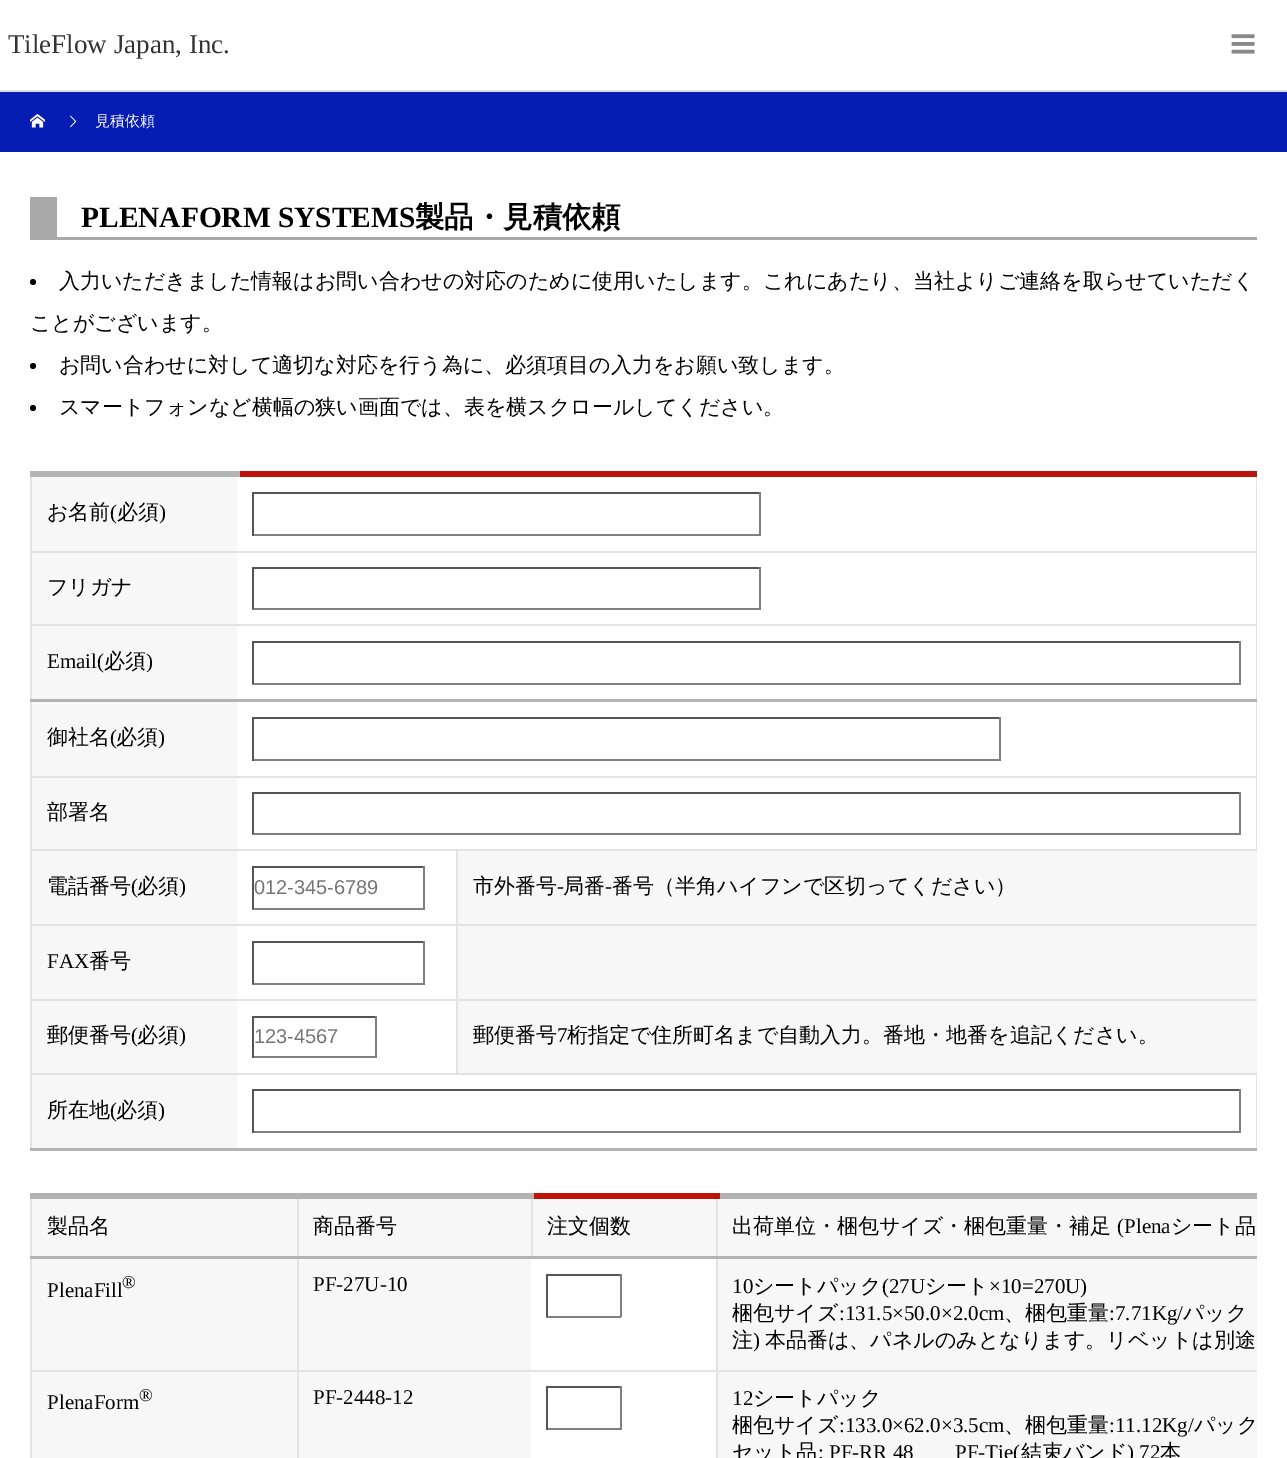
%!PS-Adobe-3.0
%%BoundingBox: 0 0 1287 1458
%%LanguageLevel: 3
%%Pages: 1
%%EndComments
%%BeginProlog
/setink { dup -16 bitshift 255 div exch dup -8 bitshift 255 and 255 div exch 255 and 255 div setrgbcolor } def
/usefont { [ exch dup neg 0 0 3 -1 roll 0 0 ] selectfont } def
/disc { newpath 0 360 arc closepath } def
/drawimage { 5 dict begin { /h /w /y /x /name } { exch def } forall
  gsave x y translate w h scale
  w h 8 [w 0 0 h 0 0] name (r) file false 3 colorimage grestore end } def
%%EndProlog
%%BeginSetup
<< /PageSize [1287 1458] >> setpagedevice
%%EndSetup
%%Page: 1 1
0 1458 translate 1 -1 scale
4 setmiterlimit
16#FFFFFF setink
0 0 1287 1458 rectfill
16#DDDDDD setink
0 90 1287 2 rectfill
/LiberationSerif-Regular 27 usefont
16#333333 setink
8 53 moveto (TileFlow Japan, Inc.) show
(img1.raw) 1231 34 24 20 drawimage
16#051DB3 setink
0 92 1287 60 rectfill
(img2.raw) 30 114 15 14 drawimage
(img3.raw) 70 115 7 13 drawimage
/WenQuanYiZenHei-Medium 15 usefont
16#FFFFFF setink
95 126 moveto (見積依頼) show
16#A9A9A9 setink
57 237 1200 3 rectfill
30 197 27 43 rectfill
/LiberationSerif-Bold 29.4 usefont
16#000000 setink
81 227 moveto (PLENAFORM SYSTEMS) show
/WenQuanYiZenHei-Bold 29.4 usefont
415 227 moveto (製品・見積依頼) show
33 282 3 disc fill
/WenQuanYiZenHei-Medium 21 usefont
59 288 moveto (入力いただきました情報はお問い合わせの対応のために使用いたします。これにあたり、当社よりご連絡を取らせていただく) show
30 330 moveto (ことがございます。) show
33 366 3 disc fill
59 372 moveto (お問い合わせに対して適切な対応を行う為に、必須項目の入力をお願い致します。) show
33 408 3 disc fill
59 414 moveto (スマートフォンなど横幅の狭い画面では、表を横スクロールしてください。) show
[
    [1256 474 1 377 16#E3E3E3]
    [1256 1073 1 76 16#E3E3E3]
    [456 1073 801 2 16#E3E3E3]
    [456 999 2 75 16#E3E3E3]
    [456 999 801 2 16#E3E3E3]
    [456 924 2 77 16#E3E3E3]
    [456 924 801 2 16#E3E3E3]
    [456 849 2 77 16#E3E3E3]
    [30 1073 2 76 16#E3E3E3]
    [30 1073 428 2 16#E3E3E3]
    [30 999 2 75 16#E3E3E3]
    [30 999 428 2 16#E3E3E3]
    [30 924 2 77 16#E3E3E3]
    [30 924 428 2 16#E3E3E3]
    [30 849 2 77 16#E3E3E3]
    [30 849 1227 2 16#E3E3E3]
    [30 776 2 75 16#E3E3E3]
    [30 776 1227 2 16#E3E3E3]
    [30 624 2 153 16#E3E3E3]
    [30 624 1227 2 16#E3E3E3]
    [30 551 2 75 16#E3E3E3]
    [30 551 1227 2 16#E3E3E3]
    [234 471 1023 6 16#BE1309]
    [252 492 509 2 16#555555]
    [759 492 2 44 16#808080]
    [252 534 509 2 16#808080]
    [252 492 2 44 16#555555]
    [32 477 205 74 16#F7F7F7]
    [30 474 2 78 16#E3E3E3]
    [30 471 210 6 16#B3B3B3]
] { aload pop setink rectfill } forall
16#000000 setink
47 519 moveto (お名前) show
/LiberationSerif-Regular 21 usefont
110 519 moveto (\() show
/WenQuanYiZenHei-Medium 21 usefont
117 519 moveto (必須) show
/LiberationSerif-Regular 21 usefont
159 519 moveto (\)) show
[
    [252 567 509 2 16#555555]
    [759 567 2 42 16#808080]
    [252 608 509 2 16#808080]
    [252 567 2 42 16#555555]
    [32 553 205 71 16#F7F7F7]
] { aload pop setink rectfill } forall
/WenQuanYiZenHei-Medium 21 usefont
16#000000 setink
47 594 moveto (フリガナ) show
16#B3B3B3 setink
30 699 1227 3 rectfill
16#F7F7F7 setink
32 626 205 73 rectfill
/LiberationSerif-Regular 21 usefont
16#000000 setink
47 668 moveto (Email\() show
/WenQuanYiZenHei-Medium 21 usefont
104 668 moveto (必須) show
/LiberationSerif-Regular 21 usefont
146 668 moveto (\)) show
[
    [252 641 989 2 16#555555]
    [1239 641 2 43 16#808080]
    [252 683 989 2 16#808080]
    [252 641 2 43 16#555555]
    [252 717 749 2 16#555555]
    [999 717 2 44 16#808080]
    [252 759 749 2 16#808080]
    [252 717 2 44 16#555555]
    [32 702 205 74 16#F7F7F7]
] { aload pop setink rectfill } forall
/WenQuanYiZenHei-Medium 21 usefont
16#000000 setink
47 744 moveto (御社名) show
/LiberationSerif-Regular 21 usefont
110 744 moveto (\() show
/WenQuanYiZenHei-Medium 21 usefont
116 744 moveto (必須) show
/LiberationSerif-Regular 21 usefont
158 744 moveto (\)) show
[
    [252 792 989 2 16#555555]
    [1239 792 2 42 16#808080]
    [252 833 989 2 16#808080]
    [252 792 2 42 16#555555]
    [32 778 205 71 16#F7F7F7]
] { aload pop setink rectfill } forall
/WenQuanYiZenHei-Medium 21 usefont
16#000000 setink
47 819 moveto (部署名) show
16#F7F7F7 setink
32 851 205 73 rectfill
16#000000 setink
47 893 moveto (電話番号) show
/LiberationSerif-Regular 21 usefont
131 893 moveto (\() show
/WenQuanYiZenHei-Medium 21 usefont
137 893 moveto (必須) show
/LiberationSerif-Regular 21 usefont
179 893 moveto (\)) show
[
    [252 866 173 2 16#555555]
    [423 866 2 43 16#808080]
    [252 908 173 2 16#808080]
    [252 866 2 43 16#555555]
] { aload pop setink rectfill } forall
/LiberationSans-Regular 20 usefont
16#757575 setink
254 894 moveto (012-345-6789) show
16#F7F7F7 setink
458 851 799 73 rectfill
/WenQuanYiZenHei-Medium 21 usefont
16#000000 setink
473 893 moveto (市外番号) show
/LiberationSerif-Regular 21 usefont
557 893 moveto (-) show
/WenQuanYiZenHei-Medium 21 usefont
563 893 moveto (局番) show
/LiberationSerif-Regular 21 usefont
605 893 moveto (-) show
/WenQuanYiZenHei-Medium 21 usefont
612 893 moveto (番号（半角ハイフンで区切ってください）) show
[
    [252 941 173 2 16#555555]
    [423 941 2 43 16#808080]
    [252 983 173 2 16#808080]
    [252 941 2 43 16#555555]
    [458 926 799 73 16#F7F7F7]
    [32 926 205 73 16#F7F7F7]
] { aload pop setink rectfill } forall
/LiberationSerif-Regular 21 usefont
16#000000 setink
47 968 moveto (FAX) show
/WenQuanYiZenHei-Medium 21 usefont
89 968 moveto (番号) show
16#F7F7F7 setink
32 1001 205 72 rectfill
16#000000 setink
47 1042 moveto (郵便番号) show
/LiberationSerif-Regular 21 usefont
131 1042 moveto (\() show
/WenQuanYiZenHei-Medium 21 usefont
137 1042 moveto (必須) show
/LiberationSerif-Regular 21 usefont
179 1042 moveto (\)) show
[
    [252 1016 125 2 16#555555]
    [375 1016 2 42 16#808080]
    [252 1056 125 2 16#808080]
    [252 1016 2 42 16#555555]
] { aload pop setink rectfill } forall
/LiberationSans-Regular 20 usefont
16#757575 setink
254 1043 moveto (123-4567) show
16#F7F7F7 setink
458 1001 799 72 rectfill
/WenQuanYiZenHei-Medium 21 usefont
16#000000 setink
473 1042 moveto (郵便番号) show
/LiberationSerif-Regular 21 usefont
557 1042 moveto (7) show
/WenQuanYiZenHei-Medium 21 usefont
567 1042 moveto (桁指定で住所町名まで自動入力。番地・地番を追記ください。) show
16#B3B3B3 setink
30 1148 1227 3 rectfill
16#F7F7F7 setink
32 1075 205 73 rectfill
16#000000 setink
47 1117 moveto (所在地) show
/LiberationSerif-Regular 21 usefont
110 1117 moveto (\() show
/WenQuanYiZenHei-Medium 21 usefont
116 1117 moveto (必須) show
/LiberationSerif-Regular 21 usefont
158 1117 moveto (\)) show
[
    [252 1089 989 2 16#555555]
    [1239 1089 2 44 16#808080]
    [252 1131 989 2 16#808080]
    [252 1089 2 44 16#555555]
    [531 1194 2 63 16#E3E3E3]
    [716 1370 2 88 16#E3E3E3]
    [716 1370 541 2 16#E3E3E3]
    [716 1194 2 177 16#E3E3E3]
    [297 1370 2 88 16#E3E3E3]
    [297 1370 420 2 16#E3E3E3]
    [297 1194 2 177 16#E3E3E3]
    [30 1370 2 88 16#E3E3E3]
    [30 1370 269 2 16#E3E3E3]
    [30 1194 2 177 16#E3E3E3]
    [30 1256 1227 3 16#B3B3B3]
    [32 1199 265 57 16#F7F7F7]
] { aload pop setink rectfill } forall
/WenQuanYiZenHei-Medium 21 usefont
16#000000 setink
47 1233 moveto (製品名) show
[
    [299 1199 232 57 16#F7F7F7]
    [714 1193 543 6 16#B3B3B3]
    [528 1193 192 6 16#BE1309]
    [30 1193 504 6 16#B3B3B3]
] { aload pop setink rectfill } forall
16#000000 setink
313 1233 moveto (商品番号) show
16#F7F7F7 setink
533 1199 183 57 rectfill
16#000000 setink
547 1233 moveto (注文個数) show
16#F7F7F7 setink
718 1199 539 57 rectfill
16#000000 setink
732 1233 moveto (出荷単位・梱包サイズ・梱包重量・補足) show
/LiberationSerif-Regular 21 usefont
1117 1233 moveto (\(Plena) show
/WenQuanYiZenHei-Medium 21 usefont
1171 1233 moveto (シート品) show
16#F7F7F7 setink
32 1259 265 111 rectfill
/LiberationSerif-Regular 21 usefont
16#000000 setink
47 1297 moveto (PlenaFill) show
/LiberationSerif-Regular 18 usefont
122 1288 moveto (®) show
[
    [546 1274 75 2 16#555555]
    [620 1274 2 43 16#808080]
    [546 1316 75 2 16#808080]
    [546 1274 2 43 16#555555]
    [299 1259 232 111 16#F7F7F7]
] { aload pop setink rectfill } forall
/LiberationSerif-Regular 21 usefont
16#000000 setink
313 1291 moveto (PF-27U-10) show
16#F7F7F7 setink
718 1259 539 111 rectfill
16#000000 setink
732 1293 moveto (10) show
/WenQuanYiZenHei-Medium 21 usefont
753 1293 moveto (シートパック) show
/LiberationSerif-Regular 21 usefont
882 1293 moveto (\(27U) show
/WenQuanYiZenHei-Medium 21 usefont
925 1293 moveto (シート) show
/LiberationSerif-Regular 21 usefont
989 1293 moveto (×10=270U\)) show
/WenQuanYiZenHei-Medium 21 usefont
732 1320 moveto (梱包サイズ) show
/LiberationSerif-Regular 21 usefont
839 1320 moveto (:131.5×50.0×2.0cm) show
/WenQuanYiZenHei-Medium 21 usefont
1004 1320 moveto (、梱包重量) show
/LiberationSerif-Regular 21 usefont
1109 1320 moveto (:7.71Kg/) show
/WenQuanYiZenHei-Medium 21 usefont
1183 1320 moveto (パック) show
732 1347 moveto (注) show
/LiberationSerif-Regular 21 usefont
753 1347 moveto (\)) show
/WenQuanYiZenHei-Medium 21 usefont
765 1347 moveto (本品番は、パネルのみとなります。リベットは別途) show
16#F7F7F7 setink
32 1372 265 86 rectfill
/LiberationSerif-Regular 21 usefont
16#000000 setink
47 1409 moveto (PlenaForm) show
/LiberationSerif-Regular 18 usefont
139 1401 moveto (®) show
16#F7F7F7 setink
299 1372 232 86 rectfill
/LiberationSerif-Regular 21 usefont
16#000000 setink
313 1404 moveto (PF-2448-12) show
[
    [546 1386 75 2 16#555555]
    [620 1386 2 44 16#808080]
    [546 1428 75 2 16#808080]
    [546 1386 2 44 16#555555]
    [718 1372 539 86 16#F7F7F7]
] { aload pop setink rectfill } forall
16#000000 setink
732 1405 moveto (12) show
/WenQuanYiZenHei-Medium 21 usefont
753 1405 moveto (シートパック) show
732 1432 moveto (梱包サイズ) show
/LiberationSerif-Regular 21 usefont
839 1432 moveto (:133.0×62.0×3.5cm) show
/WenQuanYiZenHei-Medium 21 usefont
1004 1432 moveto (、梱包重量) show
/LiberationSerif-Regular 21 usefont
1109 1432 moveto (:11.12Kg/) show
/WenQuanYiZenHei-Medium 21 usefont
1194 1432 moveto (パック) show
732 1459 moveto (セット品) show
/LiberationSerif-Regular 21 usefont
818 1459 moveto (: PF-RR 48) show
955 1459 moveto (PF-Tie\() show
/WenQuanYiZenHei-Medium 21 usefont
1021 1459 moveto (結束バンド) show
/LiberationSerif-Regular 21 usefont
1127 1459 moveto (\) 72) show
/WenQuanYiZenHei-Medium 21 usefont
1160 1459 moveto (本) show
showpage
%%EOF
